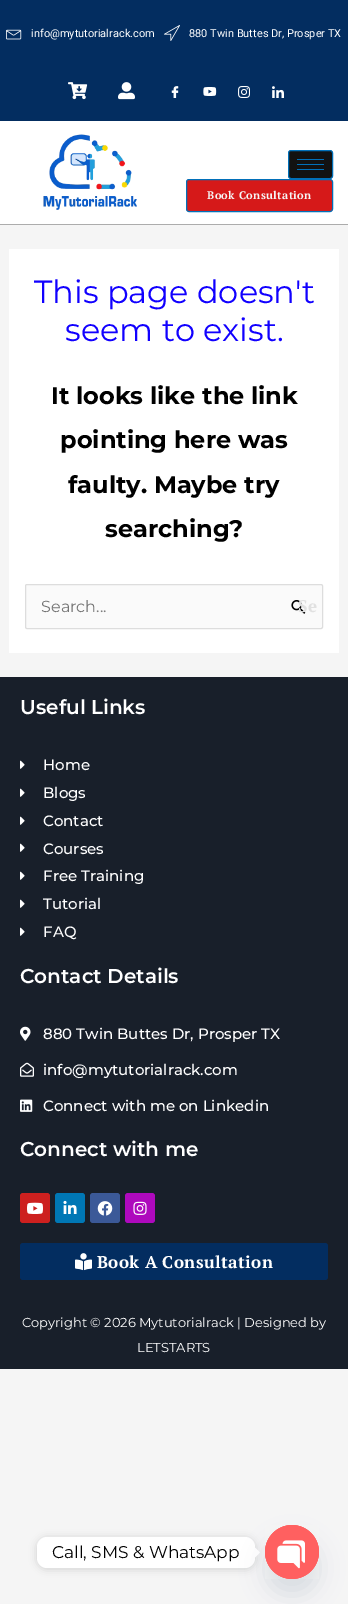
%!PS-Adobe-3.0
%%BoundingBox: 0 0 348 1604
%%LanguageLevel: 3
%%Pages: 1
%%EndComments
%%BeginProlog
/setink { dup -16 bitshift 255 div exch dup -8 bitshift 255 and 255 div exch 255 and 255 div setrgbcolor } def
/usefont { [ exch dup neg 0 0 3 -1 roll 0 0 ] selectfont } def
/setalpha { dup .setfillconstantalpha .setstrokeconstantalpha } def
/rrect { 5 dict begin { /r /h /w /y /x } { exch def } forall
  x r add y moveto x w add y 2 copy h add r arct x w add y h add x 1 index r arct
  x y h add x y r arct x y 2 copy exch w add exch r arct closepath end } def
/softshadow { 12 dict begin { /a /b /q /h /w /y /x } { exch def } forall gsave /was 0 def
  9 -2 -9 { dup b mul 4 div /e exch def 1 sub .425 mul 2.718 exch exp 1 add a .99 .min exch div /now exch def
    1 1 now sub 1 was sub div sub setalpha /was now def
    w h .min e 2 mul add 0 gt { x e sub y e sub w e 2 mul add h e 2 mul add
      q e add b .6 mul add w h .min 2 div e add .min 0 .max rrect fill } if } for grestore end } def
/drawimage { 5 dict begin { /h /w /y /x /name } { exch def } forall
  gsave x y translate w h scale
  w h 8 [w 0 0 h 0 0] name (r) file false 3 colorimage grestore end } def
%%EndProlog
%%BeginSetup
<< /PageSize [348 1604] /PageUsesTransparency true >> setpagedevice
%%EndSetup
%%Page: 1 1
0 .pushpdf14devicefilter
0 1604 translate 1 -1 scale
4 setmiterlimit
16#F5F5F5 setink
0 0 348 1604 rectfill
16#ACACAC setink
0 224 348 1 rectfill
16#032D60 setink
0 0 348 121 rectfill
(img1.raw) 6 29 16 11 drawimage
/Roboto-Regular 11 usefont
16#FFFFFF setink
31 37 moveto (info@mytutorialrack.com) show
(img2.raw) 164 25 16 16 drawimage
189 37 moveto (880 Twin Buttes Dr, Prosper TX) show
(img3.raw) 68 82 20 18 drawimage
(img4.raw) 118 82 17 18 drawimage
(img5.raw) 171 86 8 12 drawimage
(img6.raw) 203 87 14 9 drawimage
(img7.raw) 238 86 12 12 drawimage
(img8.raw) 272 86 12 12 drawimage
0 121 348 103 rectfill
(img9.raw) 43 134 94 76 drawimage
16#121212 setink
288.5 150.5 44 28 2.5 rrect gsave fill grestore
16#0170B9 setink
stroke
[
    [297 159 27 1 16#0170B9]
    [297 164 27 1 16#0170B9]
    [297 169 27 1 16#0170B9]
] { aload pop setink rectfill } forall
16#D61919 setink
186.5 179.5 146 32 2.5 rrect gsave fill grestore
16#0170B9 setink
stroke
/PTSerif-Bold 11 usefont
16#F5F5F5 setink
207 199 moveto 0.4 0 (Book Consultation) ashow
16#FFFFFF setink
9 249 330 404 rectfill
/Montserrat-Regular 32 usefont
16#1100FF setink
34 303 moveto (This page doesn't) show
65 341 moveto (seem to exist.) show
/Montserrat-Bold 24 usefont
16#000000 setink
[
    [(It looks like the link) 51 404]
    [(pointing here was) 60 448]
    [(faulty. Maybe try) 68 493]
    [(searching?) 105 537]
] { aload pop moveto show } forall
16#FAFAFA setink
25.5 584.5 297 44 1.5 rrect gsave fill grestore
16#DDDDDD setink
stroke
/Montserrat-Regular 16 usefont
16#757575 setink
41 612 moveto (Search...) show
(img10.raw) 291 600 15 14 drawimage
/PTSerif-Bold 17 usefont
16#E1E1E1 setink
298 612 moveto 0.4 0 (Se) ashow
16#181F2A setink
0 677 348 692 rectfill
/Montserrat-SemiBold 20 usefont
16#FFFFFF setink
20 714 moveto (Useful Links) show
(img11.raw) 20 760 5 9 drawimage
/Montserrat-Medium 15 usefont
43 770 moveto (Home) show
(img11.raw) 20 788 5 9 drawimage
43 798 moveto (Blogs) show
(img11.raw) 20 816 5 9 drawimage
43 826 moveto (Contact) show
(img11.raw) 20 843 5 9 drawimage
43 854 moveto (Courses) show
(img11.raw) 20 871 5 9 drawimage
43 881 moveto (Free Training) show
(img11.raw) 20 899 5 9 drawimage
43 909 moveto (Tutorial) show
(img11.raw) 20 927 5 9 drawimage
43 937 moveto (FAQ) show
/Montserrat-SemiBold 20 usefont
20 983 moveto (Contact Details) show
(img12.raw) 20 1026 11 15 drawimage
/Montserrat-Medium 15 usefont
43 1039 moveto (880 Twin Buttes Dr, Prosper TX) show
(img13.raw) 20 1062 14 15 drawimage
43 1075 moveto (info@mytutorialrack.com) show
(img14.raw) 20 1099 13 13 drawimage
43 1111 moveto (Connect with me on Linkedin) show
/Montserrat-SemiBold 20 usefont
20 1156 moveto (Connect with me) show
16#CD201F setink
20 1193 30 30 3 rrect fill
(img15.raw) 27 1202 16 12 drawimage
16#0077B5 setink
55 1193 30 30 3 rrect fill
(img16.raw) 63 1200 14 14 drawimage
16#3B5998 setink
90 1193 30 30 3 rrect fill
(img17.raw) 97 1201 16 15 drawimage
16#AE09BD setink
125 1193 30 30 3 rrect fill
(img18.raw) 133 1201 14 14 drawimage
16#032D60 setink
20 1243 308 37 3 rrect fill
(img19.raw) 75 1253 17 18 drawimage
/PTSerif-Bold 17 usefont
16#FFFFFF setink
97 1268 moveto 0.4 0 (Book A Consultation) ashow
/Montserrat-Regular 13 usefont
22 1327 moveto (Copyright © 2026 Mytutorialrack | Designed by) show
137 1352 moveto (LETSTARTS) show
16#000000 setink
37 1538 218 31 10 4 0.15 softshadow
16#FFFFFF setink
37 1537 218 31 10 rrect fill
/Montserrat-Regular 17 usefont
16#000000 setink
52 1558 moveto (Call, SMS & WhatsApp) show
16#FFFFFF setink
255 1557.5 moveto 255 1547.5 lineto 260 1552.5 lineto closepath fill
16#49687E setink
265 1541 54 54 27 12 0.16 softshadow
(img20.raw) 265 1525 54 54 drawimage
.poppdf14devicefilter showpage
%%EOF
